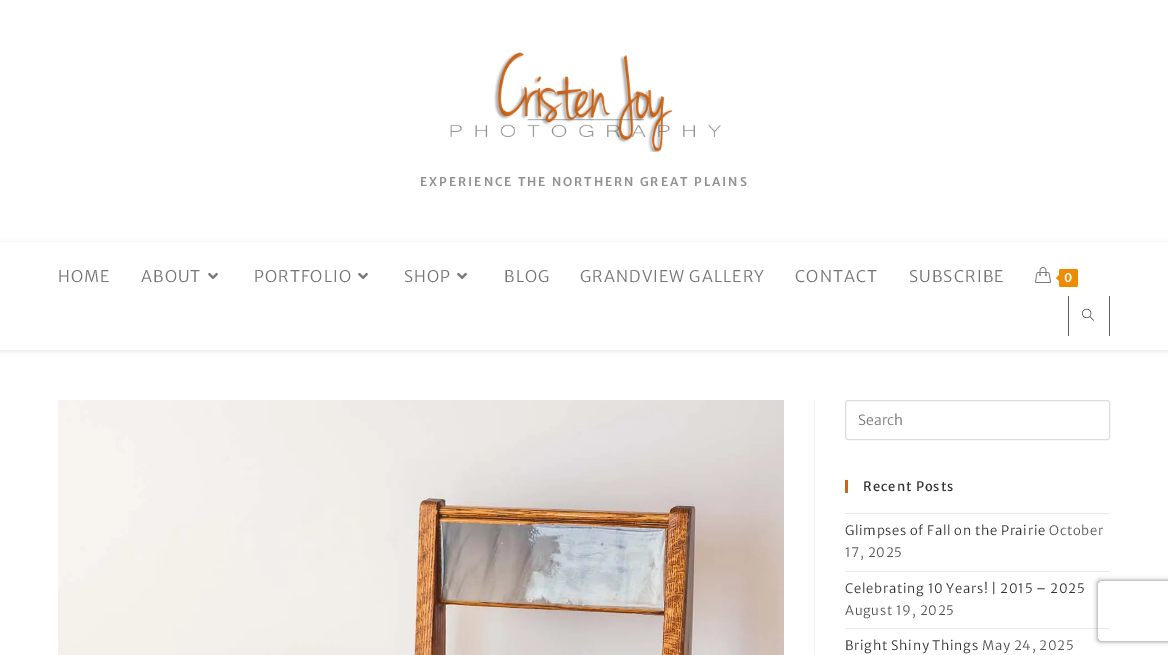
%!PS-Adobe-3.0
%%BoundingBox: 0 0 1168 655
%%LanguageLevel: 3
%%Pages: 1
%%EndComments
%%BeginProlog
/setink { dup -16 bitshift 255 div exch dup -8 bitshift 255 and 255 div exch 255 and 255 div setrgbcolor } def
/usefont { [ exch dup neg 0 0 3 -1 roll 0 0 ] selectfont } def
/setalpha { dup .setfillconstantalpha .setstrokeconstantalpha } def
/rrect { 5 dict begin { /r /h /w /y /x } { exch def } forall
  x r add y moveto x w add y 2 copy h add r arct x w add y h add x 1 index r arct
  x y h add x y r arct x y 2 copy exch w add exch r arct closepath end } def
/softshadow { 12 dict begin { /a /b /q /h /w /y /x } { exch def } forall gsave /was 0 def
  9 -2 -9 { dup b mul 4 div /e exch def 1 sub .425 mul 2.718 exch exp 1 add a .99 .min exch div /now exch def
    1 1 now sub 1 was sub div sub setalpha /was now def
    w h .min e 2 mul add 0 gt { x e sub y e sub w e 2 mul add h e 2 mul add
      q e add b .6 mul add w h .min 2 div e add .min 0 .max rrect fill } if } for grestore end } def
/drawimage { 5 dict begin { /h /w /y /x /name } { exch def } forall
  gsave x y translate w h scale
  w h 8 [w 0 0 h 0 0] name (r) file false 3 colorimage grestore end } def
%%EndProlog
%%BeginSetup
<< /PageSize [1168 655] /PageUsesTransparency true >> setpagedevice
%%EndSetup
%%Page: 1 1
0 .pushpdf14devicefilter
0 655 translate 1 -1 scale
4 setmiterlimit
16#FFFFFF setink
0 0 1168 655 rectfill
(img1.raw) 450 52 271 100 drawimage
/MerriweatherSans-SemiBold 12 usefont
16#929292 setink
420 186 moveto 2 0 (EXPERIENCE THE NORTHERN GREAT PLAINS) ashow
gsave
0 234 moveto 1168 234 lineto 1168 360 lineto 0 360 lineto closepath 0 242 moveto 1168 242 lineto 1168 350 lineto 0 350 lineto closepath eoclip newpath
16#000000 setink
0 243 1168 108 0 2.5 0.1 softshadow
grestore
/MerriweatherSans-Light 16 usefont
16#757575 setink
58 282 moveto 1.1 0 (HOME) ashow
141 282 moveto 1.1 0 (ABOUT) ashow
(img2.raw) 208 272 10 8 drawimage
254 282 moveto 1.1 0 (PORTFOLIO) ashow
(img2.raw) 358 272 10 8 drawimage
404 282 moveto 1.1 0 (SHOP) ashow
(img2.raw) 457 272 10 8 drawimage
504 282 moveto 1.1 0 (BLOG) ashow
580 282 moveto 1.1 0 (GRANDVIEW GALLERY) ashow
795 282 moveto 1.1 0 (CONTACT) ashow
909 282 moveto 1.1 0 (SUBSCRIBE) ashow
(img3.raw) 1035 267 16 16 drawimage
16#EF8B00 setink
1059 269 19 18 2 rrect fill
1061 273 moveto 1061 283 lineto 1056 278 lineto closepath fill
/MerriweatherSans-SemiBold 12 usefont
16#FFFFFF setink
1064 282 moveto 1.1 0 (0) ashow
16#606060 setink
1109 296 1 40 rectfill
1068 296 1 40 rectfill
(img4.raw) 1082 308 12 13 drawimage
16#F1F1F1 setink
814 400 1 255 rectfill
(img5.raw) 58 400 726 255 drawimage
16#DDDDDD setink
845.5 400.5 264 39 2.5 rrect stroke
/MerriweatherSans-Light 14 usefont
16#757575 setink
858 425 moveto (Search) show
16#CE6517 setink
845 480 3 13 rectfill
/MerriweatherSans-Regular 13 usefont
16#333333 setink
863 491 moveto 1 0 (Recent Posts) ashow
16#E9E9E9 setink
845 513 265 1 rectfill
845 571 265 1 rectfill
/MerriweatherSans-Light 13 usefont
16#333333 setink
845 535 moveto 0.7 0 (Glimpses of Fall on the Prairie) ashow
16#545454 setink
1049 535 moveto 0.7 0 (October) ashow
845 557 moveto 0.7 0 (17, 2025) ashow
16#E9E9E9 setink
845 628 265 1 rectfill
16#333333 setink
845 593 moveto 0.7 0 (Celebrating 10 Years! | 2015 – 2025) ashow
16#545454 setink
845 615 moveto 0.7 0 (August 19, 2025) ashow
16#333333 setink
845 650 moveto 0.7 0 (Bright Shiny Things) ashow
16#545454 setink
982 650 moveto 0.7 0 (May 24, 2025) ashow
gsave
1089 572 moveto 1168 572 lineto 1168 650 lineto 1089 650 lineto closepath 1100 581 moveto 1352 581 lineto 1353 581 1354 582 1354 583 curveto 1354 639 lineto 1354 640 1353 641 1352 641 curveto 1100 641 lineto 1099 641 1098 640 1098 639 curveto 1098 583 lineto 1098 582 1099 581 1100 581 curveto closepath eoclip newpath
16#808080 setink
1098 581 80 60 2 2.5 1 softshadow
grestore
.poppdf14devicefilter showpage
%%EOF
